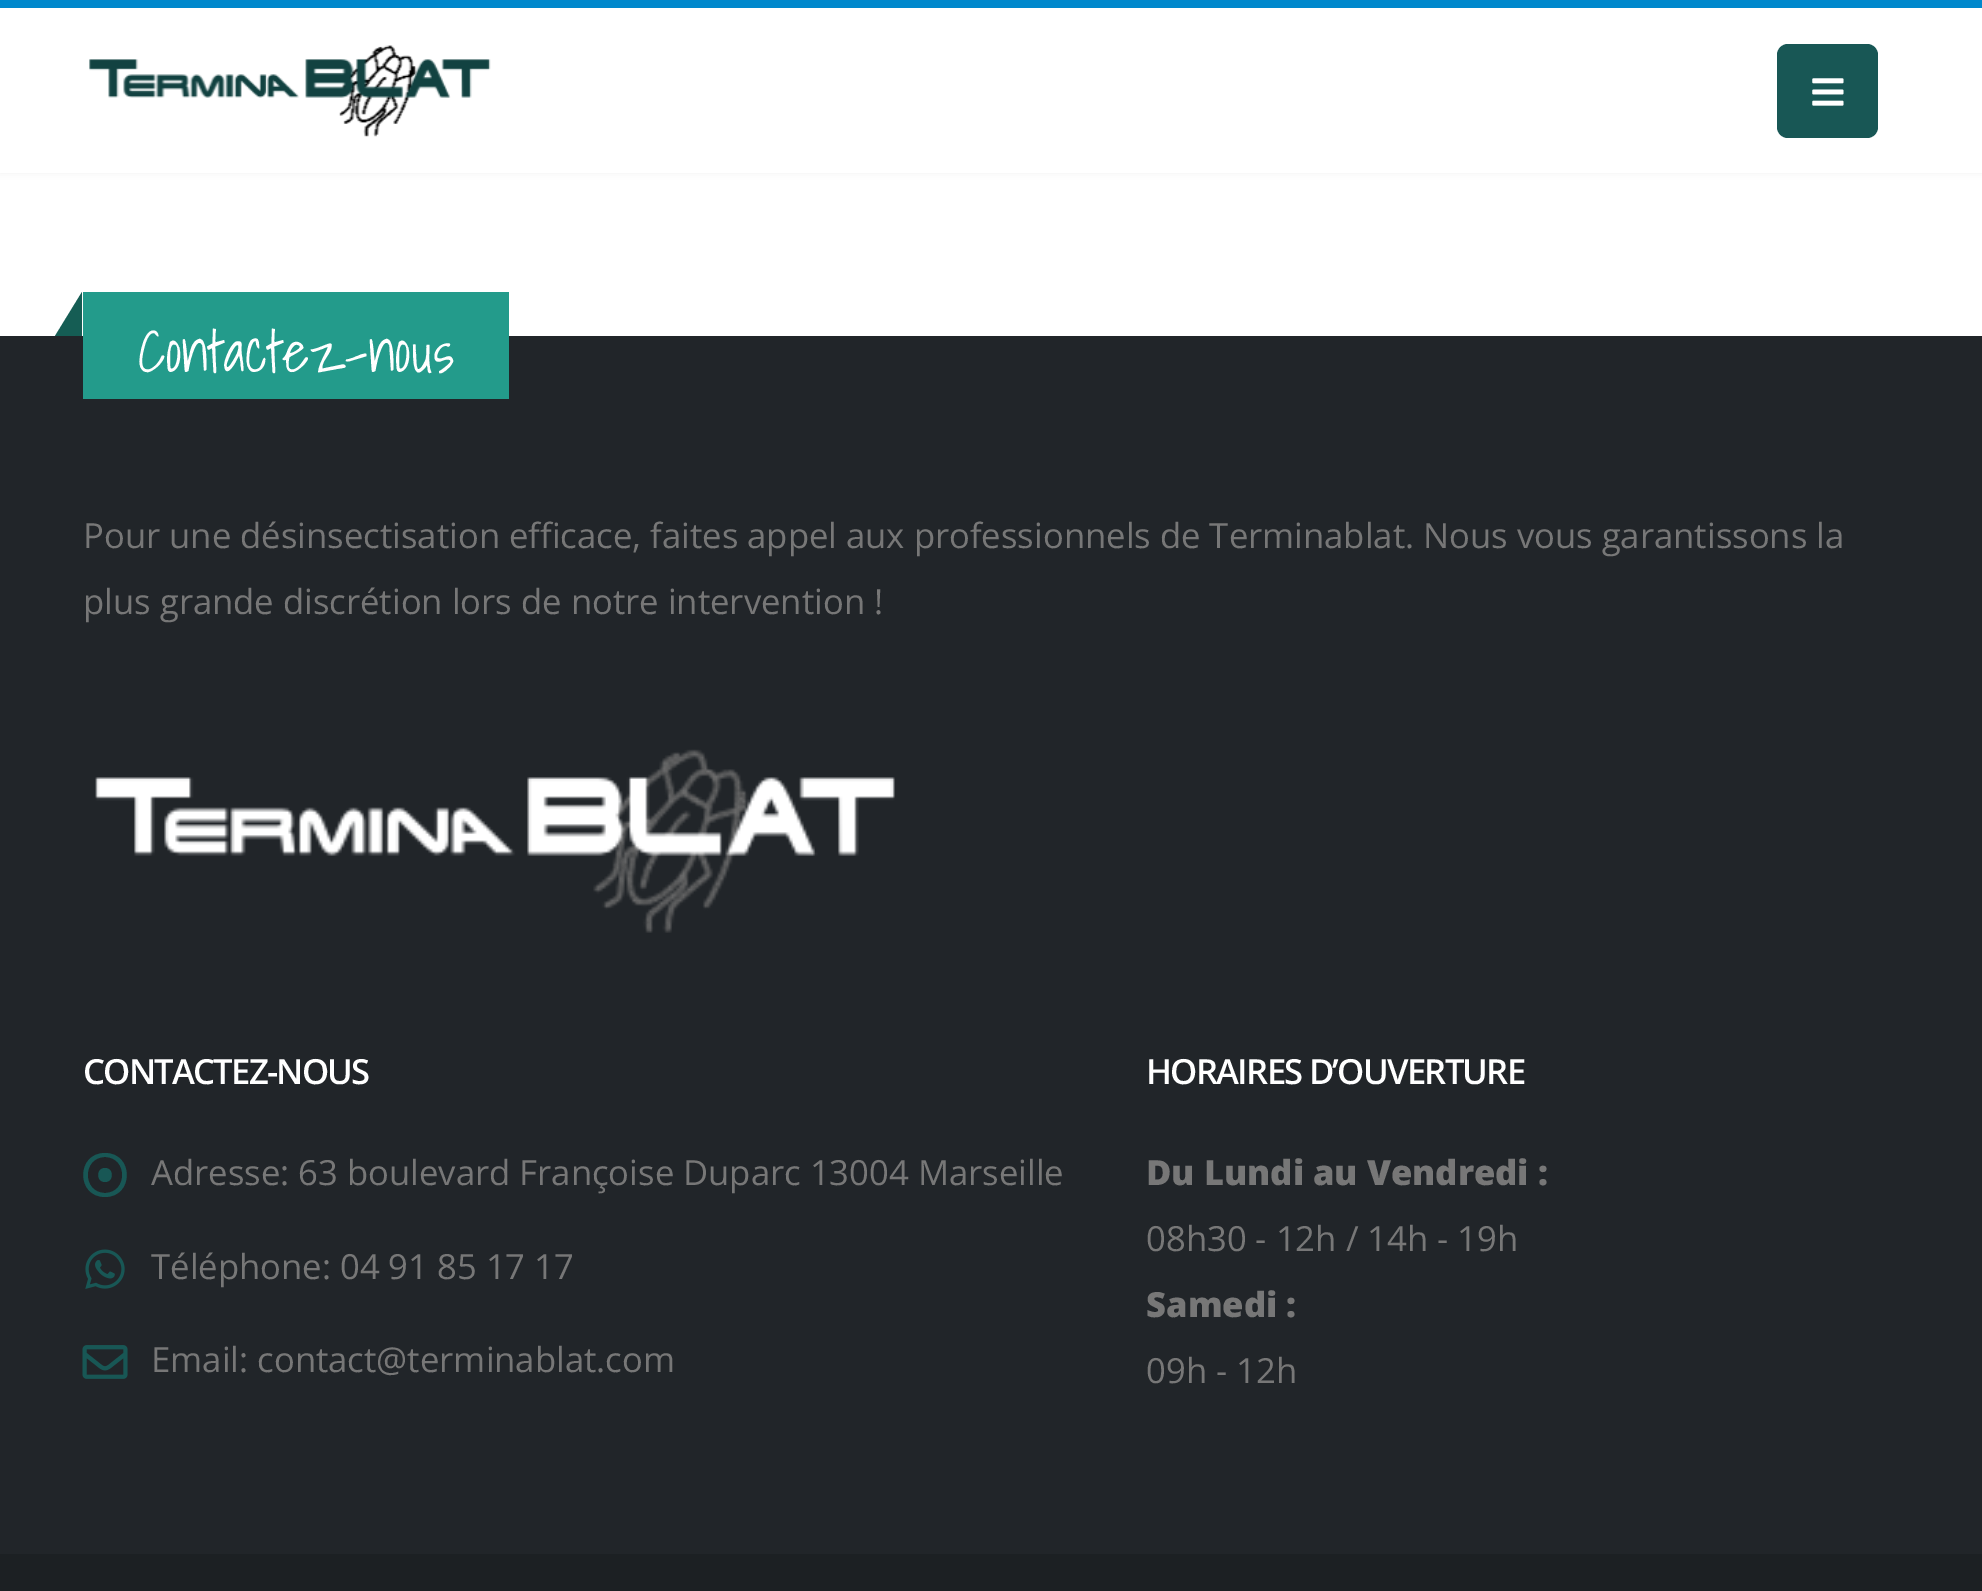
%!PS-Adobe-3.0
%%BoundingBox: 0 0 1982 1591
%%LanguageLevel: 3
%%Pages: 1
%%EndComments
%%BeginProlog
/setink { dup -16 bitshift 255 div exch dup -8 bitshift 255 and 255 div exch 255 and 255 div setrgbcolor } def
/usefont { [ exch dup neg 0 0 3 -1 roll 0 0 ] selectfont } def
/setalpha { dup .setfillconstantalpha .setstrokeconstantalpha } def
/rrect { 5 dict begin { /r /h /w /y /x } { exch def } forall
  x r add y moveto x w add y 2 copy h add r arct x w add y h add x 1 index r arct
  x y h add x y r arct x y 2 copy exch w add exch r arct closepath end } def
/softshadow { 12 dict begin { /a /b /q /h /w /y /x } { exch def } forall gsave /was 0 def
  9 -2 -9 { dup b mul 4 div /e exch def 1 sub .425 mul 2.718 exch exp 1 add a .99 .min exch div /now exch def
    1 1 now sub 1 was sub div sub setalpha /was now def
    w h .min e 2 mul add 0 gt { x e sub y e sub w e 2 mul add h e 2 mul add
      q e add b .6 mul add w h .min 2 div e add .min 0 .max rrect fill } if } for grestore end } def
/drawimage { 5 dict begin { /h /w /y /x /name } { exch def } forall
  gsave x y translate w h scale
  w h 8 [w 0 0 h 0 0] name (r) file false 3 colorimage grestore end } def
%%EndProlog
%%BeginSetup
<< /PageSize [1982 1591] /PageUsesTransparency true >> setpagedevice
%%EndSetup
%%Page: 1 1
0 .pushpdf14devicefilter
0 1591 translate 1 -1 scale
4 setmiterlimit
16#FFFFFF setink
0 0 1982 1591 rectfill
16#000000 setink
0 0 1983 173 0 4 0.06 softshadow
16#FFFFFF setink
0 8 1982 165 rectfill
16#0088CC setink
0 0 1982 8 rectfill
(img1.raw) 89 45 402 92 drawimage
16#185755 setink
1777 44 101 94 11 rrect fill
(img2.raw) 1812 78 32 28 drawimage
16#212529 setink
0 336 1982 1218 rectfill
16#239B8B setink
83 292 426 107 rectfill
16#155D54 setink
82 292 moveto 82 336 lineto 55 336 lineto closepath fill
/ShadowsIntoLight-Light 57.25 usefont
16#FFFFFF setink
138 372 moveto (Contactez-nous) show
/OpenSans-Regular 34.65 usefont
16#777777 setink
83 548 moveto (Pour une désinsectisation efficace, faites appel aux professionnels de Terminablat. Nous vous garantissons la) show
83 614 moveto (plus grande discrétion lors de notre intervention !) show
(img3.raw) 95 749 800 184 drawimage
/OpenSans-SemiBold 34.65 usefont
16#FFFFFF setink
83 1084 moveto -1.75 0 (CONTACTEZ-NOUS) ashow
16#185755 setink
105 1157 moveto 82 1157 82 1193 105 1193 curveto 128 1193 128 1157 105 1157 curveto closepath 105 1153 moveto 134 1153 134 1197 105 1197 curveto 76 1197 76 1153 105 1153 curveto closepath 105 1168 moveto 114 1168 114 1182 105 1182 curveto 96 1182 96 1168 105 1168 curveto closepath fill
/OpenSans-Regular 34.65 usefont
16#777777 setink
151 1185 moveto (Adresse: 63 boulevard Françoise Duparc 13004 Marseille) show
(img4.raw) 85 1249 40 40 drawimage
151 1279 moveto (Téléphone: 04 91 85 17 17) show
(img5.raw) 82 1345 46 34 drawimage
151 1372 moveto (Email: contact@terminablat.com) show
/OpenSans-SemiBold 34.65 usefont
16#FFFFFF setink
1146 1084 moveto -1.75 0 (HORAIRES D’OUVERTURE) ashow
/OpenSans-ExtraBold 34.65 usefont
16#777777 setink
1146 1185 moveto (Du Lundi au Vendredi :) show
/OpenSans-Regular 34.65 usefont
1146 1251 moveto (08h30 - 12h / 14h - 19h) show
/OpenSans-ExtraBold 34.65 usefont
1146 1317 moveto (Samedi :) show
/OpenSans-Regular 34.65 usefont
1146 1383 moveto (09h - 12h) show
16#1C2023 setink
0 1554 1982 37 rectfill
.poppdf14devicefilter showpage
%%EOF
